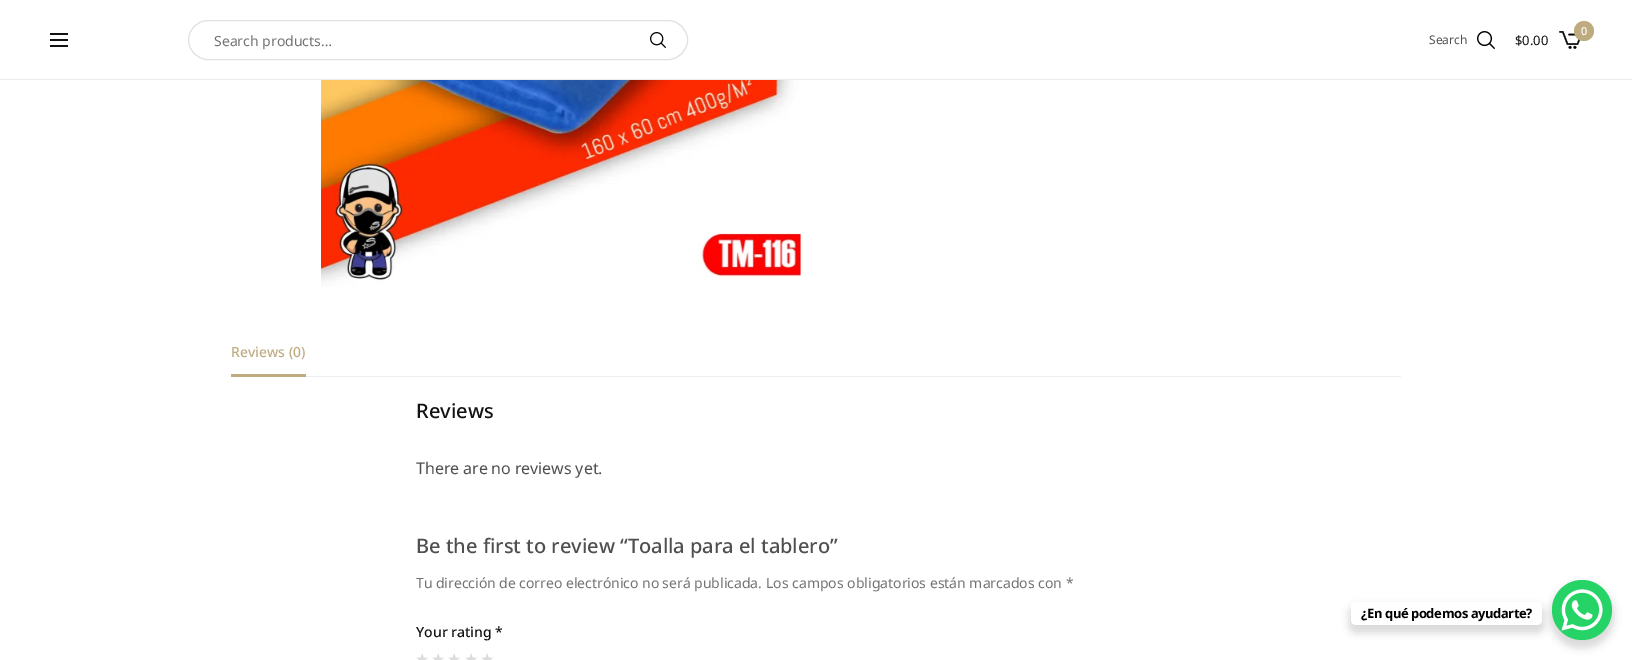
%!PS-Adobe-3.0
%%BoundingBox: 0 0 1632 660
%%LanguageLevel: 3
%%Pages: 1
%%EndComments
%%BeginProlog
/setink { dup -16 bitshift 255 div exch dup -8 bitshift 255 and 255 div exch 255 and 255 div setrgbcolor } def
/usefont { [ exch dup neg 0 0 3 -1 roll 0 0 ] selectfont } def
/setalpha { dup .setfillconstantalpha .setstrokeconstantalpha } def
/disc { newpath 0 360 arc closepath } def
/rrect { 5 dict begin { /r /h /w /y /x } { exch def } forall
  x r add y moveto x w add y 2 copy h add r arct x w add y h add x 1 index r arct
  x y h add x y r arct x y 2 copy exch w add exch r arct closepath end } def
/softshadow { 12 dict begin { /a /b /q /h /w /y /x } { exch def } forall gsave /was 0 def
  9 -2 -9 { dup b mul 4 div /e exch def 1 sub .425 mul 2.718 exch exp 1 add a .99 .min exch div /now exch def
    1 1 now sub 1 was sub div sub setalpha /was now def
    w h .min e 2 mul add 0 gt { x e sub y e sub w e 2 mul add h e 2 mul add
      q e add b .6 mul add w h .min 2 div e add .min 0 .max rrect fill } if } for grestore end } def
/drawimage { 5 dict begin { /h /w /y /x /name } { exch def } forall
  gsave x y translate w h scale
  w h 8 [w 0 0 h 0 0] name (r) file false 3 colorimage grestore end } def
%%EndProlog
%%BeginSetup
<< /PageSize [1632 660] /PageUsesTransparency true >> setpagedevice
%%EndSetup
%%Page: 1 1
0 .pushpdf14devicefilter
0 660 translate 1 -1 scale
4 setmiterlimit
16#FFFFFF setink
0 0 1632 660 rectfill
[
    [50 33 18 2 16#121212]
    [50 39 18 2 16#121212]
    [50 45 18 2 16#121212]
] { aload pop setink rectfill } forall
16#E0E0E0 setink
188.5 20.5 499 39 19.5 rrect stroke
/NotoSans-Regular 14 usefont
16#727272 setink
214 46 moveto (Search products…) show
(img1.raw) 650 32 16 16 drawimage
/NotoSans-Regular 12 usefont
16#4F4F4F setink
1429 44 moveto (Search) show
(img2.raw) 1477 31 18 18 drawimage
(img3.raw) 1559 31 21 18 drawimage
16#BFAB80 setink
1584 31 10 disc fill
/NotoSans-Medium 11 usefont
16#FFFFFF setink
1581 35 moveto (0) show
/NotoSans-Regular 13 usefont
16#121212 setink
1515 45 moveto ($0.00) show
16#EBEBEB setink
0 79 1632 1 rectfill
(img4.raw) 321 80 480 207 drawimage
16#EEEEEE setink
306 376 1095 1 rectfill
16#BFAB80 setink
231 374 75 3 rectfill
/NotoSans-Medium 14 usefont
231 357 moveto (Reviews \(0\)) show
/NotoSans-Medium 20 usefont
16#121212 setink
416 418 moveto (Reviews) show
/NotoSans-Regular 16 usefont
16#4F4F4F setink
416 474 moveto -0.5 0 32 (There are no reviews yet.) widthshow
/NotoSans-Medium 20 usefont
416 553 moveto (Be the first to review “Toalla para el tablero”) show
/NotoSans-Regular 14 usefont
16#727272 setink
416 588 moveto -0.25 0 32 (Tu dirección de correo electrónico no será publicada.) widthshow
766 588 moveto (Los campos obligatorios están marcados con *) show
/NotoSans-Medium 14 usefont
16#121212 setink
416 637 moveto (Your rating *) show
(img5.raw) 416 653 12 7 drawimage
(img5.raw) 432 653 12 7 drawimage
(img5.raw) 448 653 12 7 drawimage
(img5.raw) 465 653 12 7 drawimage
(img5.raw) 481 653 12 7 drawimage
16#000000 setink
1550 584 64 64 32 4 0.15 softshadow
16#25D366 setink
1582 610 30 disc fill
16#000000 setink
1349 606 195 27 7 4 0.15 softshadow
16#FFFFFF setink
1351 602 191 23 5 rrect fill
/NotoSans-Bold 13 usefont
16#000000 setink
1361 618 moveto -0.4 0 (¿En qué podemos ayudarte?) ashow
(img6.raw) 1561 589 42 42 drawimage
.poppdf14devicefilter showpage
%%EOF
